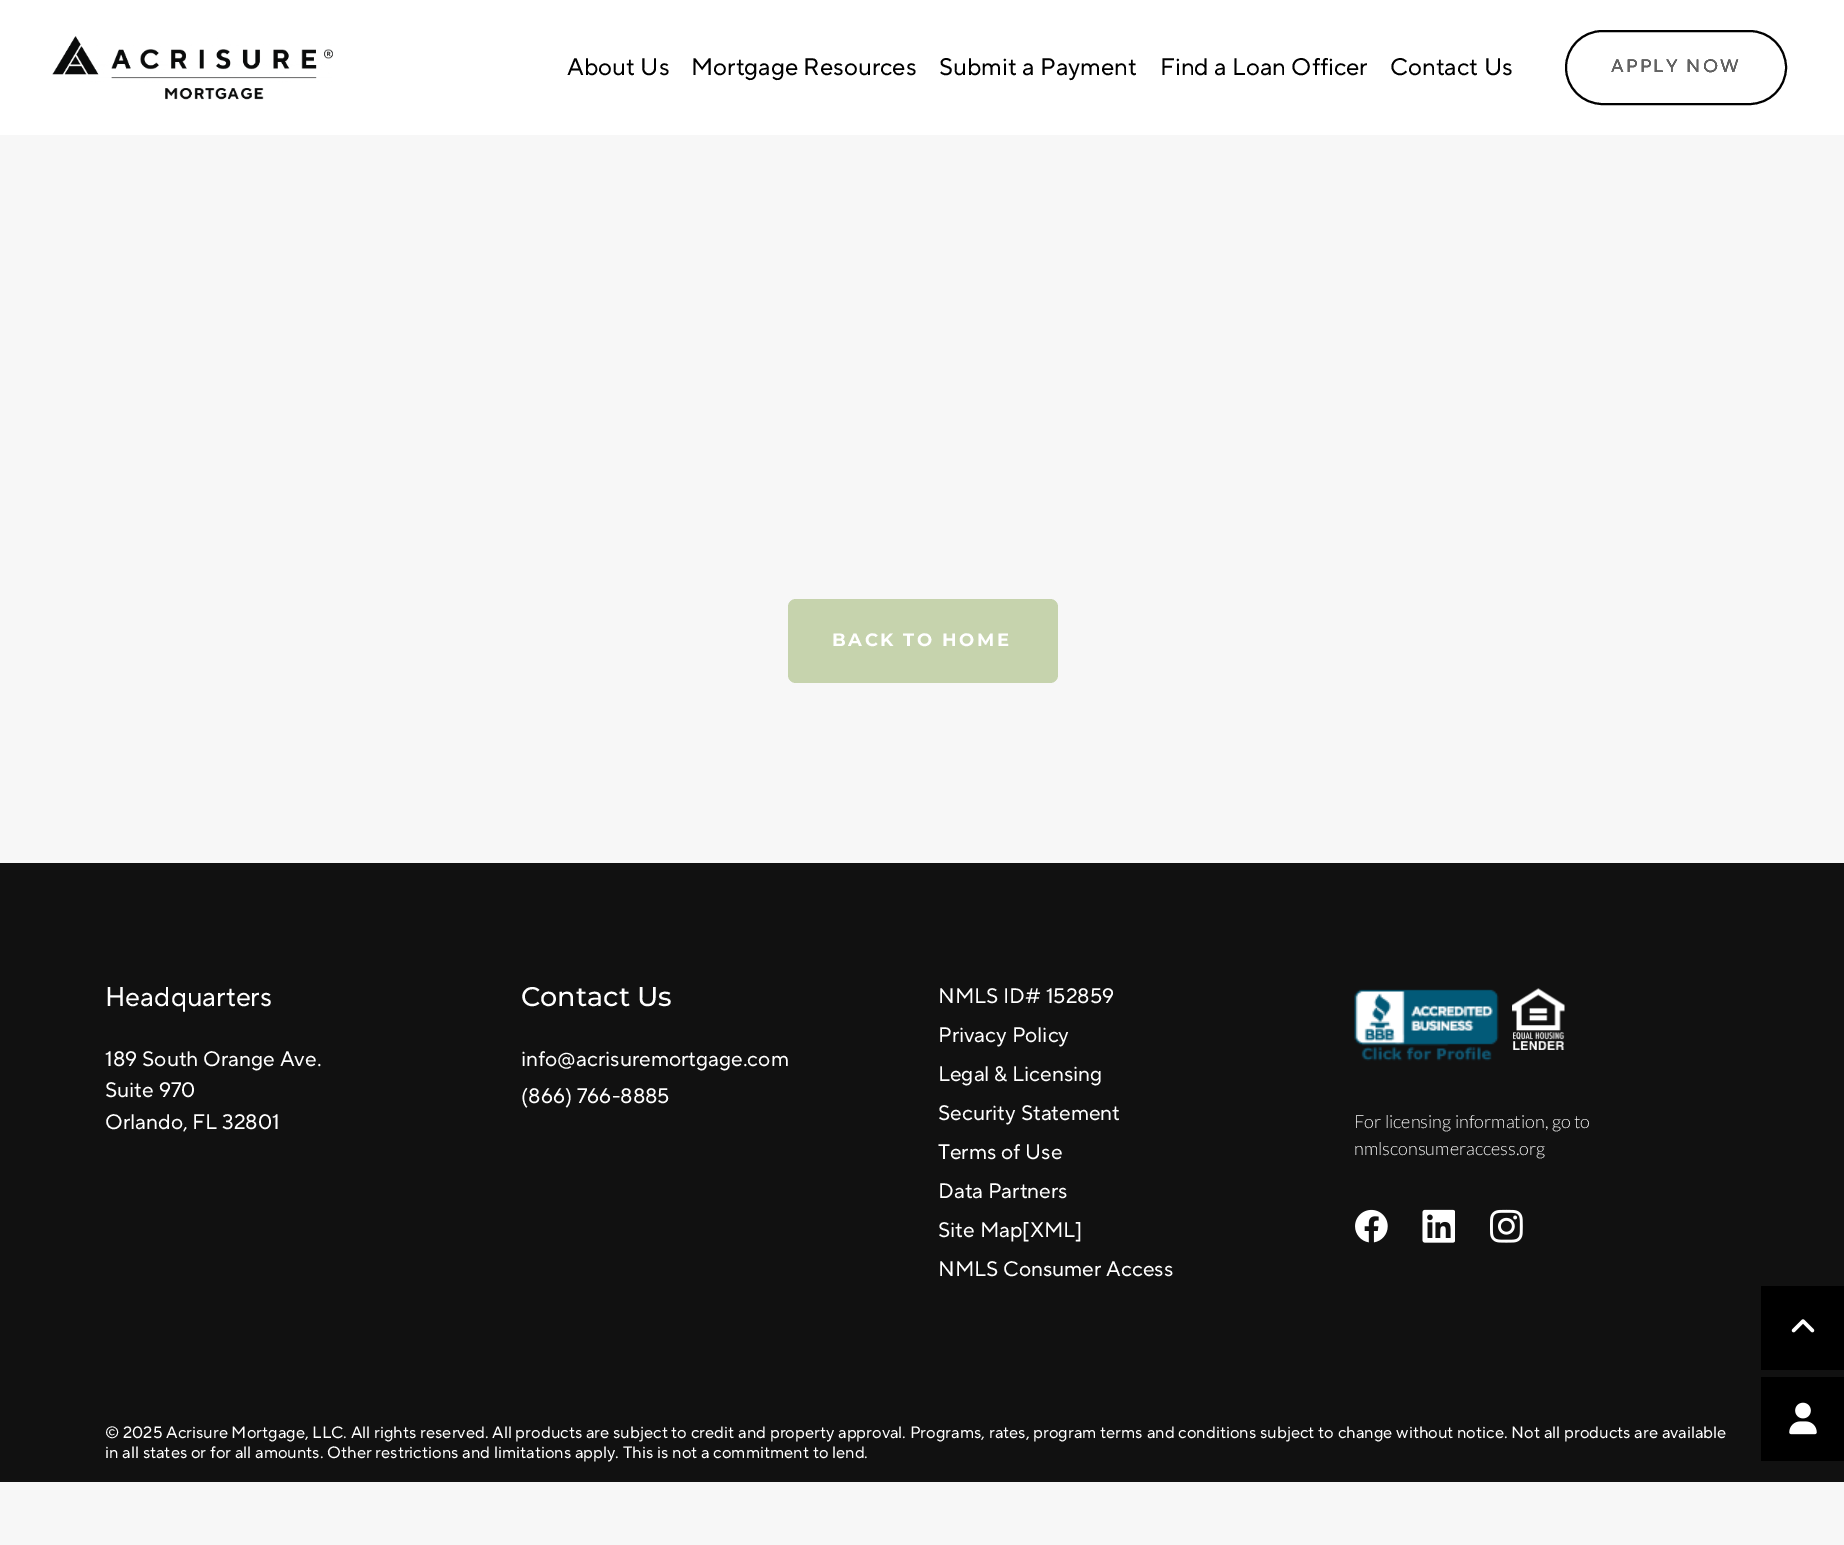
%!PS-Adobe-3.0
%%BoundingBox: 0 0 1844 1545
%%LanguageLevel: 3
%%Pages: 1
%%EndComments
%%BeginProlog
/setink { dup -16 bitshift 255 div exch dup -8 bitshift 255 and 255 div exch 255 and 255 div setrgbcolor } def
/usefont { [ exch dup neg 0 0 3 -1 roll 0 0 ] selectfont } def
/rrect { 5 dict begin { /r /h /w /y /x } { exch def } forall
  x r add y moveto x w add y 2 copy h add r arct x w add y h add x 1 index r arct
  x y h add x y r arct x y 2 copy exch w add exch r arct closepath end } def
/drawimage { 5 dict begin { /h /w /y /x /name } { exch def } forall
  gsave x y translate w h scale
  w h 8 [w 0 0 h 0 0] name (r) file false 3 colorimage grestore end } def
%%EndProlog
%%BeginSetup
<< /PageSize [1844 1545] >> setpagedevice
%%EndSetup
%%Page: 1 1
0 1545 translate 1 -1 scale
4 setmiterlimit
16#F7F7F7 setink
0 0 1844 1545 rectfill
16#FFFFFF setink
0 0 1844 135 rectfill
(img1.raw) 52 36 281 64 drawimage
/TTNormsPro-Regular 24 usefont
16#000000 setink
[
    [(About Us) 567 75]
    [(Mortgage Resources) 691 75]
    [(Submit a Payment) 939 75]
    [(Find a Loan Officer) 1160 75]
    [(Contact Us) 1390 75]
] { aload pop moveto show } forall
2 setlinewidth
1566 31 220 73 36.5 rrect stroke
/TTNormsPro-Regular 18 usefont
1611 72 moveto 2.25 0 (APPLY NOW) ashow
16#646464 setink
1611 72 moveto 2.25 0 (APPLY NOW) ashow
16#C6D3AD setink
788 599 270 84 8 rrect fill
/Montserrat-Bold 18 usefont
16#FFFFFF setink
832 646 moveto 2.5 0 (BACK TO HOME) ashow
16#111111 setink
0 863 1844 619 rectfill
/TTNormsPro-Regular 27 usefont
16#FFFFFF setink
105 1006 moveto (Headquarters) show
/TTNormsPro-Regular 21 usefont
[
    [(189 South Orange Ave.) 105 1066]
    [(Suite 970) 105 1097]
    [(Orlando, FL 32801) 105 1129]
] { aload pop moveto show } forall
/Montserrat-Medium 27 usefont
521 1006 moveto (Contact Us) show
/TTNormsPro-Regular 21 usefont
[
    [(info@acrisuremortgage.com) 521 1066]
    [(\(866\) 766-8885) 521 1103]
    [(NMLS ID# 152859) 938 1003]
    [(Privacy Policy) 938 1042]
    [(Legal & Licensing) 938 1081]
    [(Security Statement) 938 1120]
    [(Terms of Use) 938 1159]
    [(Data Partners) 938 1198]
    [(Site Map[XML]) 938 1237]
    [(NMLS Consumer Access) 938 1276]
] { aload pop moveto show } forall
(img2.raw) 1354 989 145 72 drawimage
(img3.raw) 1512 988 53 62 drawimage
/Lato-Light 18 usefont
1354 1128 moveto (For licensing information, go to) show
1354 1155 moveto (nmlsconsumeraccess.org) show
(img4.raw) 1355 1209 33 34 drawimage
(img5.raw) 1422 1209 33 34 drawimage
(img6.raw) 1490 1209 33 34 drawimage
/TTNormsPro-Regular 16.5 usefont
105 1438 moveto (© 2025 Acrisure Mortgage, LLC. All rights reserved. All products are subject to credit and property approval. Programs, rates, program terms and conditions subject to change without notice. Not all products are available) show
105 1458 moveto (in all states or for all amounts. Other restrictions and limitations apply. This is not a commitment to lend.) show
16#000000 setink
1761 1286 83 84 rectfill
(img7.raw) 1791 1319 24 14 drawimage
1761 1377 83 84 rectfill
(img8.raw) 1789 1402 28 33 drawimage
showpage
%%EOF
